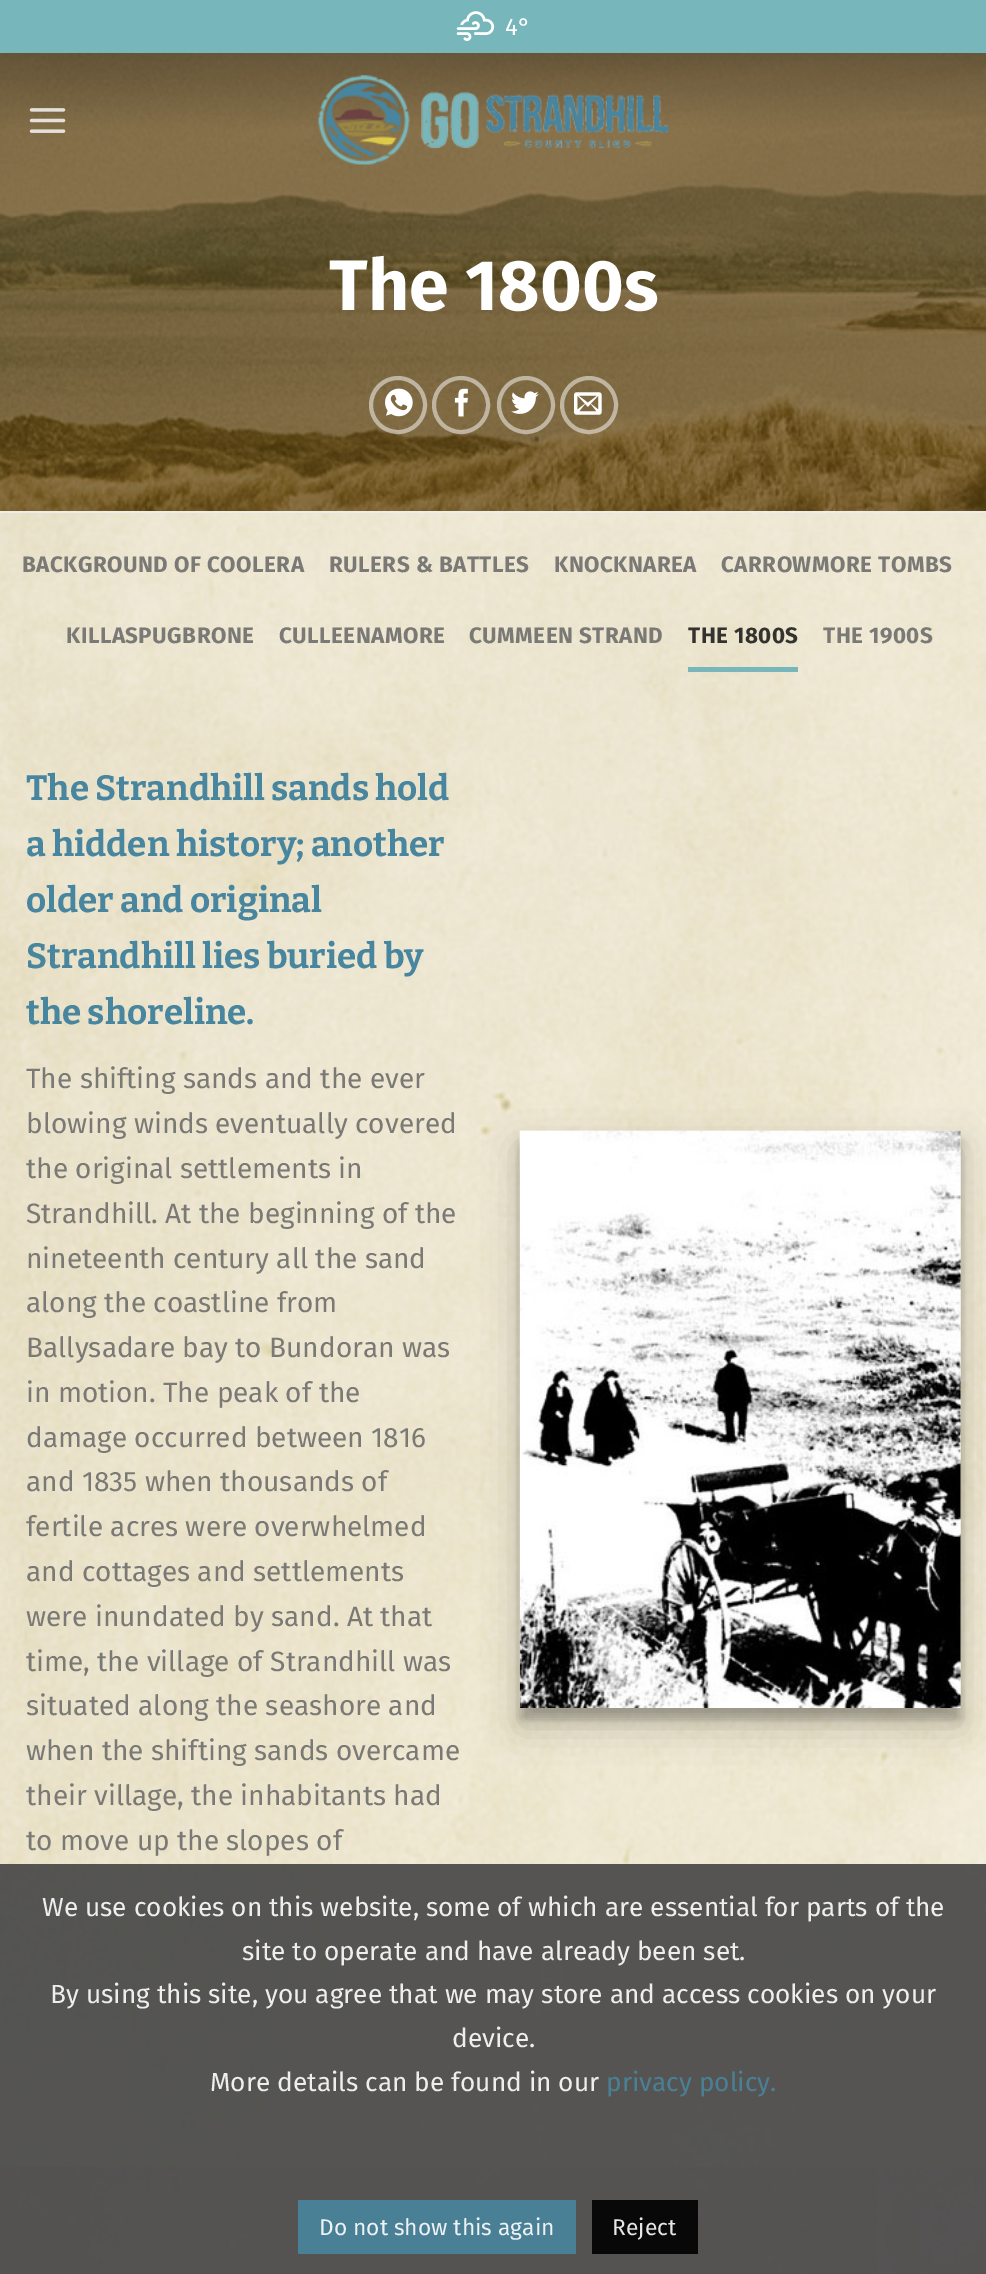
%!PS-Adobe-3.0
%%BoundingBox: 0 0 986 2274
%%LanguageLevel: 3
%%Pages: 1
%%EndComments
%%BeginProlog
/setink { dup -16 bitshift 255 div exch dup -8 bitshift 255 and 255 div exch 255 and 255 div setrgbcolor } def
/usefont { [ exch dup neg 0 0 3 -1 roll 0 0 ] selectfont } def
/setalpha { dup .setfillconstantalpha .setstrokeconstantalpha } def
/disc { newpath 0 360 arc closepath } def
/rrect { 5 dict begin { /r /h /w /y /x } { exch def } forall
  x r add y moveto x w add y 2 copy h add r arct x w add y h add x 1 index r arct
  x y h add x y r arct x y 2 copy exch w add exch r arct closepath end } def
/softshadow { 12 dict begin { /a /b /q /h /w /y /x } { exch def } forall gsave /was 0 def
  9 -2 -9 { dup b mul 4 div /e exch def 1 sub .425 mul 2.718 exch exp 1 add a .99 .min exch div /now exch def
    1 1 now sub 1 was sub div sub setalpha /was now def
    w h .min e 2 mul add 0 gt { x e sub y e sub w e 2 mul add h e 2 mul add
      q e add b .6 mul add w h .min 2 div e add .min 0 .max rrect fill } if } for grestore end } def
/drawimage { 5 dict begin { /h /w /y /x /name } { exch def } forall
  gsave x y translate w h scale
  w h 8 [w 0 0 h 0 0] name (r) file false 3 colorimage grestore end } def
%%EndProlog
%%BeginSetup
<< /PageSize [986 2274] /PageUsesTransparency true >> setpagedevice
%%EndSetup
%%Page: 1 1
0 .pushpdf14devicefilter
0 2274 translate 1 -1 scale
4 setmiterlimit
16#F9F9F9 setink
0 0 986 2274 rectfill
16#77B6BB setink
0 0 986 53 rectfill
(img1.raw) 456 11 39 30 drawimage
/FiraSans-Regular 24 usefont
16#FFFFFF setink
505 35 moveto (4°) show
(img4.raw) 0 53 986 458 drawimage
(img2.raw) 29 108 37 25 drawimage
(img3.raw) 318 75 351 90 drawimage
16#ECECEC setink
0 511 986 2 rectfill
/FiraSans-Bold 71.5 usefont
16#FFFFFF setink
329 310 moveto (The 1800s) show
0.5 setalpha
4 setlinewidth
398 405 27 disc stroke
1 setalpha
(img5.raw) 385 388 28 29 drawimage
0.5 setalpha
461 405 27 disc stroke
1 setalpha
(img6.raw) 454 388 14 29 drawimage
0.5 setalpha
526 405 27 disc stroke
1 setalpha
(img7.raw) 511 391 28 23 drawimage
0.5 setalpha
589 405 27 disc stroke
1 setalpha
(img8.raw) 574 392 28 23 drawimage
(img9.raw) 0 513 986 1654 drawimage
/FiraSans-Bold 22.4 usefont
16#7A7976 setink
22 572 moveto 0.45 0 (BACKGROUND OF COOLERA) ashow
329 572 moveto 0.45 0 (RULERS & BATTLES) ashow
554 572 moveto 0.45 0 (KNOCKNAREA) ashow
721 572 moveto 0.45 0 (CARROWMORE TOMBS) ashow
66 643 moveto 0.45 0 (KILLASPUGBRONE) ashow
279 643 moveto 0.45 0 (CULLEENAMORE) ashow
469 643 moveto 0.45 0 (CUMMEEN STRAND) ashow
16#33322E setink
688 643 moveto 0.45 0 (THE 1800S) ashow
16#77B6BB setink
688 667 110 5 rectfill
16#7A7976 setink
823 643 moveto 0.45 0 (THE 1900S) ashow
/Bitter-Thin 35 usefont
16#48859E setink
[
    [(The Strandhill sands hold) 26 800]
    [(a hidden history; another) 26 856]
    [(older and original) 26 912]
    [(Strandhill lies buried by) 26 968]
    [(the shoreline.) 26 1024]
] { aload pop moveto show } forall
/FiraSans-Regular 28 usefont
16#7A7976 setink
[
    [(The shifting sands and the ever) 26 1088]
    [(blowing winds eventually covered) 26 1133]
    [(the original settlements in) 26 1178]
    [(Strandhill. At the beginning of the) 26 1223]
    [(nineteenth century all the sand) 26 1268]
    [(along the coastline from) 26 1312]
    [(Ballysadare bay to Bundoran was) 26 1357]
    [(in motion. The peak of the) 26 1402]
    [(damage occurred between 1816) 26 1447]
    [(and 1835 when thousands of) 26 1491]
    [(fertile acres were overwhelmed) 26 1536]
    [(and cottages and settlements) 26 1581]
    [(were inundated by sand. At that) 26 1626]
    [(time, the village of Strandhill was) 26 1671]
    [(situated along the seashore and) 26 1715]
    [(when the shifting sands overcame) 26 1760]
    [(their village, the inhabitants had) 26 1805]
    [(to move up the slopes of) 26 1850]
] { aload pop moveto show } forall
16#000000 setink
520 1141 441 578 0 5 0.22 softshadow
520 1148 441 578 0 17.5 0.19 softshadow
(img10.raw) 519 1130 442 578 drawimage
(img11.raw) 0 2166 986 108 drawimage
0.9 setalpha
16#444444 setink
0 1864 986 410 rectfill
/FiraSans-Regular 26.25 usefont
1 setalpha
16#EEEEEE setink
[
    [(We use cookies on this website, some of which are essential for parts of the) 42 1916]
    [(site to operate and have already been set.) 242 1960]
    [(By using this site, you agree that we may store and access cookies on your) 50 2003]
    [(device.) 452 2047]
    [(More details can be found in our) 210 2091]
] { aload pop moveto show } forall
16#498096 setink
606 2091 moveto (privacy policy.) show
16#4A8096 setink
298 2200 278 54 rectfill
/FiraSans-Regular 22.75 usefont
16#EDF2F5 setink
319 2235 moveto (Do not show this again) show
16#080808 setink
592 2200 106 54 rectfill
16#E6E6E6 setink
612 2235 moveto (Reject) show
.poppdf14devicefilter showpage
%%EOF
